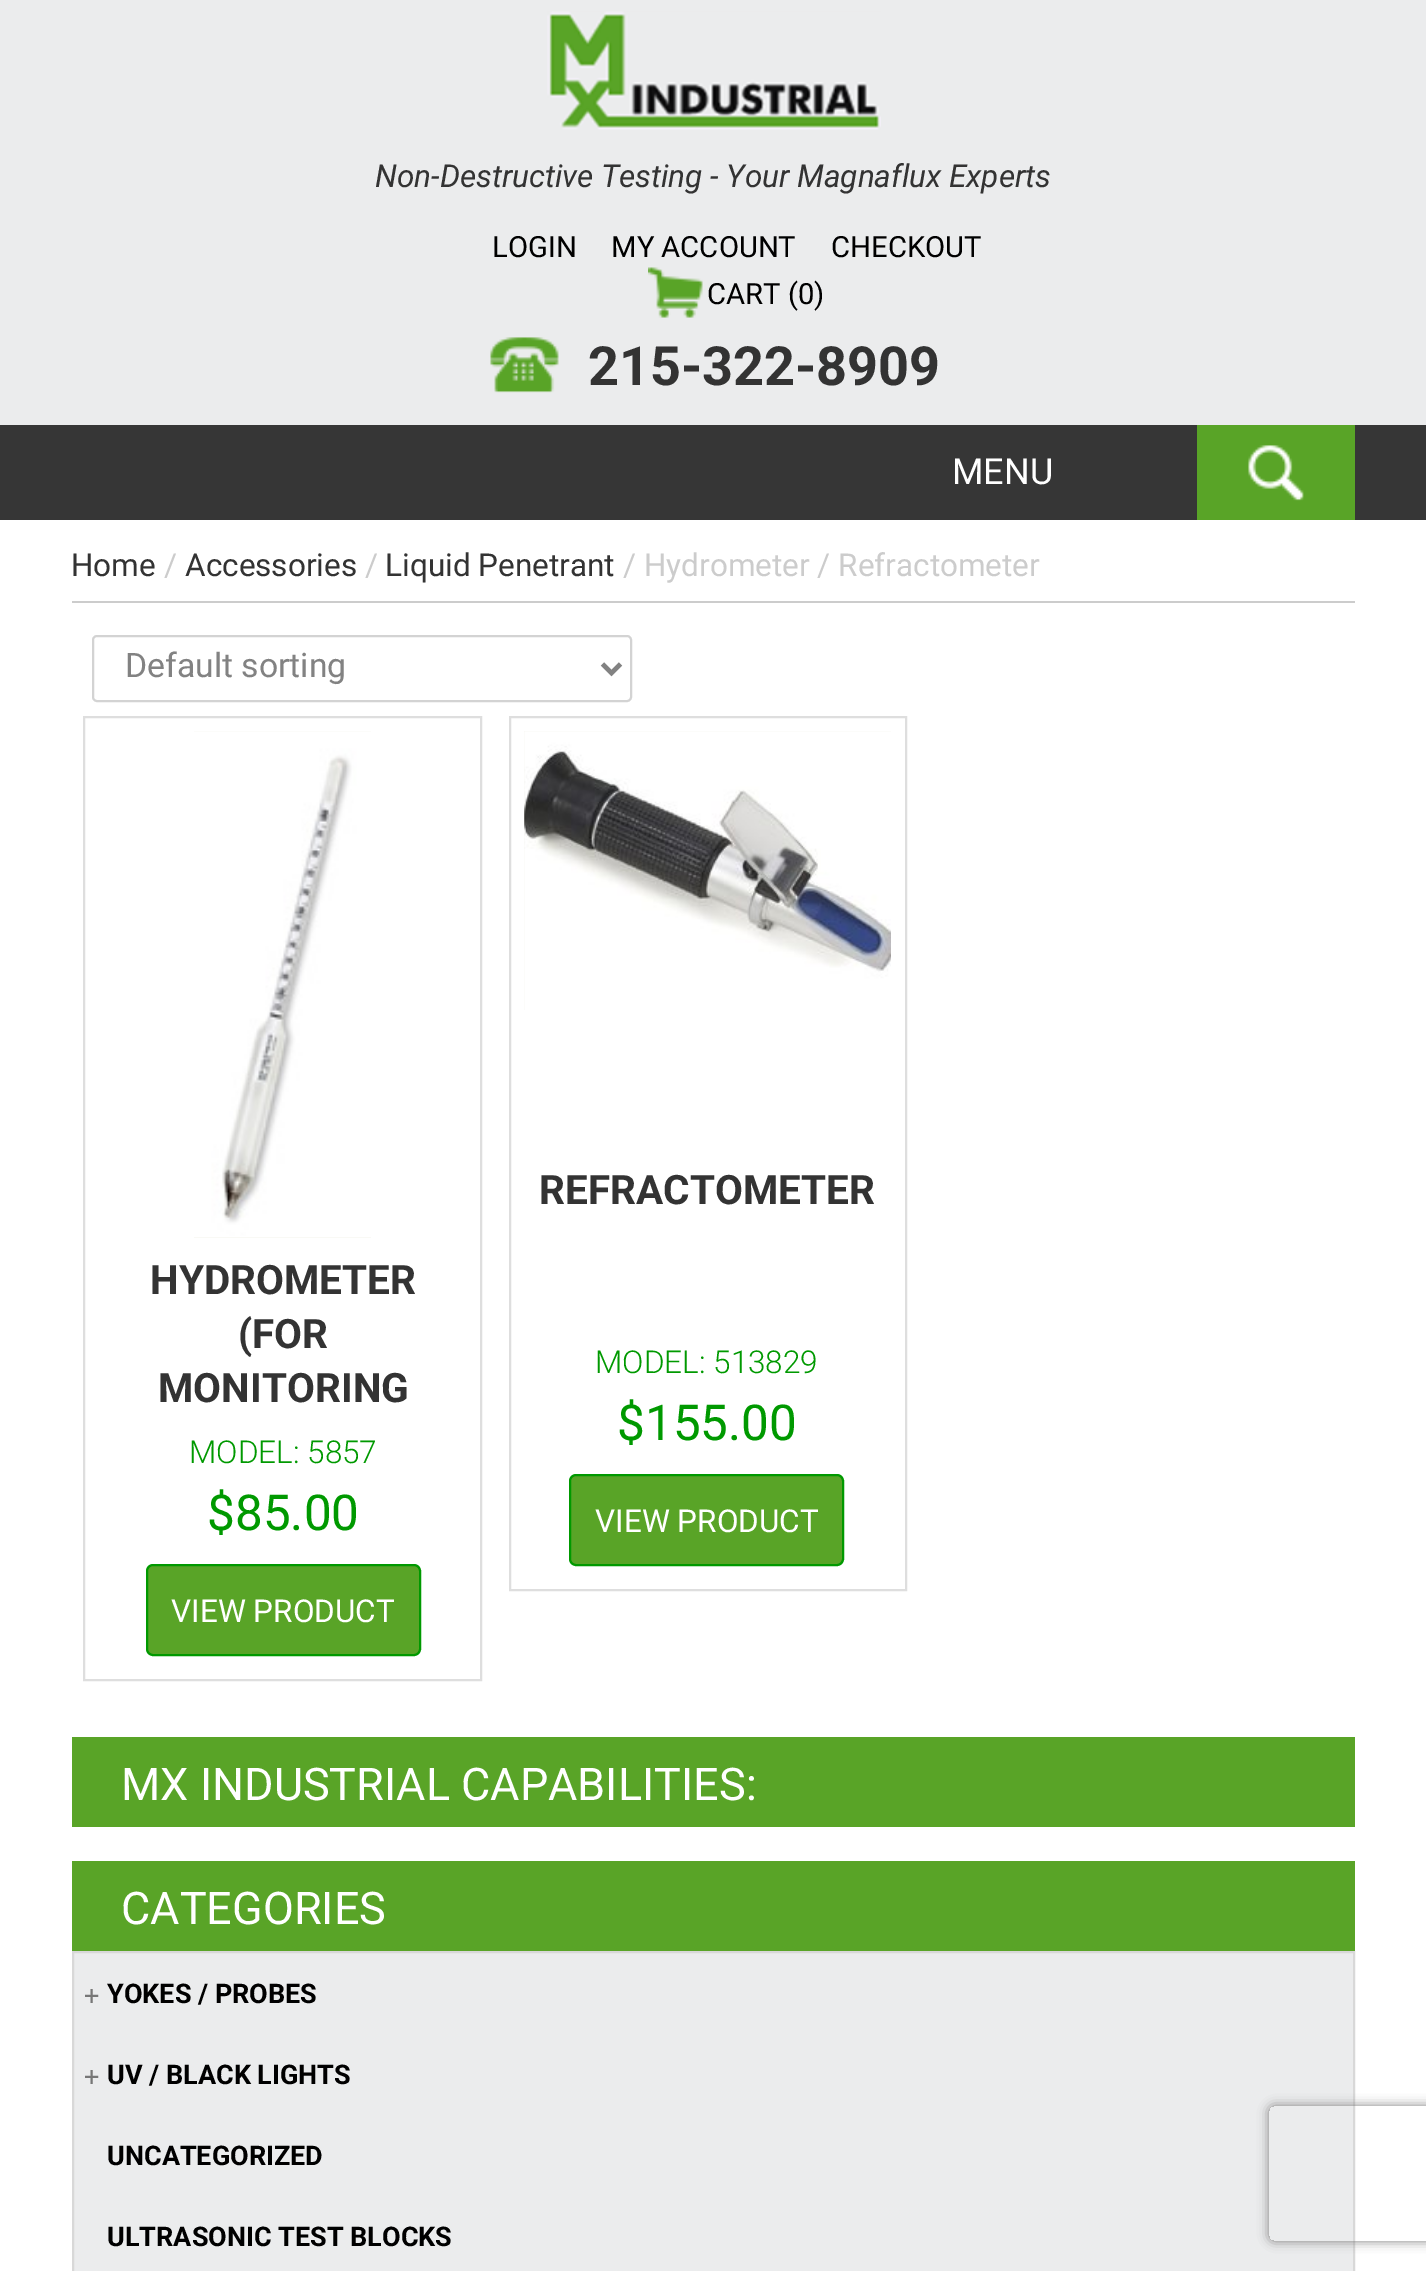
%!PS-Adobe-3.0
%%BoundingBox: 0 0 1426 2271
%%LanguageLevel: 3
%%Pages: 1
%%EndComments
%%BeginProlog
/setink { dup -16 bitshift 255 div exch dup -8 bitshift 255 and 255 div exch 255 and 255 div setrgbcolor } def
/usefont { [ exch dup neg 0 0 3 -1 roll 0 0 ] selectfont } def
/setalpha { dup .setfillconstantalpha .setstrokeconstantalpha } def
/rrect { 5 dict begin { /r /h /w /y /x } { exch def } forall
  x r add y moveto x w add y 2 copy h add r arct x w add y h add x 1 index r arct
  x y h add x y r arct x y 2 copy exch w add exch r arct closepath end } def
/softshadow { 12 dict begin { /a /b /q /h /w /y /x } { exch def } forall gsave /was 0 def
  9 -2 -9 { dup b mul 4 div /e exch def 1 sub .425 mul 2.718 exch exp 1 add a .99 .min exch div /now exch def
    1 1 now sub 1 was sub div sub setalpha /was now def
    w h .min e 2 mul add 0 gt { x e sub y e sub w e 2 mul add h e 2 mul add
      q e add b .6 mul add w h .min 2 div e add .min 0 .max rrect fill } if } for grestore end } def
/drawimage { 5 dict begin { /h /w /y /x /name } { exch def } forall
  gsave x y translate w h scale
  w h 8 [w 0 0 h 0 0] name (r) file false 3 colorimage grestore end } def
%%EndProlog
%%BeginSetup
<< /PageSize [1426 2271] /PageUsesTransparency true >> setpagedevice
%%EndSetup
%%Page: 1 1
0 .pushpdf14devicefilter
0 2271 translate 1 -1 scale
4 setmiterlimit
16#FFFFFF setink
0 0 1426 2271 rectfill
16#EBECED setink
0 0 1426 425 rectfill
(img1.raw) 547 11 334 119 drawimage
/Roboto-Italic 31.5 usefont
16#333333 setink
375 187 moveto (Non-Destructive Testing - Your Magnaflux Experts) show
/Roboto-Regular 29.25 usefont
16#000000 setink
[
    [(LOGIN) 492 257]
    [(MY ACCOUNT) 611 257]
    [(CHECKOUT) 831 257]
] { aload pop moveto show } forall
(img2.raw) 648 267 55 51 drawimage
707 304 moveto (CART \(0\)) show
(img3.raw) 490 337 69 56 drawimage
/Roboto-Bold 54 usefont
16#333333 setink
588 385 moveto (215-322-8909) show
16#363636 setink
0 425 1426 95 rectfill
/Roboto-Regular 36 usefont
16#FFFFFF setink
952 484 moveto (MENU) show
16#59A427 setink
1197 425 158 95 rectfill
(img4.raw) 1248 445 56 56 drawimage
16#CCCCCC setink
72 601 1283 2 rectfill
/Roboto-Regular 31.5 usefont
16#333333 setink
71 576 moveto (Home) show
16#CCCCCC setink
164 576 moveto (/) show
16#333333 setink
185 576 moveto (Accessories) show
16#CCCCCC setink
365 576 moveto (/) show
16#333333 setink
385 576 moveto (Liquid Penetrant) show
16#CCCCCC setink
623 576 moveto (/ Hydrometer / Refractometer) show
16#D3D3D3 setink
2 setlinewidth
93 636 538 65 4 rrect stroke
16#828282 setink
4.5 setlinewidth
602.5 664 moveto 611.5 673 lineto 620.5 664 lineto stroke
/Roboto-Regular 33.75 usefont
125 677 moveto (Default sorting) show
16#DEDEDE setink
2 setlinewidth
84 717 397 963 rectstroke
16#F3F2EB setink
194 731 177 507 rectfill
(img5.raw) 194 731 177 507 drawimage
/Roboto-Bold 40.5 usefont
16#333333 setink
[
    [(HYDROMETER) 150 1294]
    [(\(FOR) 238 1348]
    [(MONITORING) 158 1402]
] { aload pop moveto show } forall
/Roboto-Light 31.5 usefont
16#009900 setink
189 1463 moveto (MODEL: 5857) show
/Roboto-Regular 49.5 usefont
207 1530 moveto ($85.00) show
16#59A427 setink
147 1565 273 90 6 rrect gsave fill grestore
16#009900 setink
stroke
/Roboto-Regular 31.5 usefont
16#FFFFFF setink
171 1622 moveto (VIEW PRODUCT) show
16#DEDEDE setink
510 717 396 873 rectstroke
16#F3F2EB setink
524 731 367 279 rectfill
(img6.raw) 524 731 367 279 drawimage
/Roboto-Bold 40.5 usefont
16#333333 setink
539 1204 moveto (REFRACTOMETER) show
/Roboto-Light 31.5 usefont
16#009900 setink
595 1373 moveto (MODEL: 513829) show
/Roboto-Regular 49.5 usefont
617 1440 moveto ($155.00) show
16#59A427 setink
570 1475 273 90 6 rrect gsave fill grestore
16#009900 setink
stroke
/Roboto-Regular 31.5 usefont
16#FFFFFF setink
595 1532 moveto (VIEW PRODUCT) show
16#59A427 setink
72 1737 1283 90 rectfill
/Roboto-Regular 45 usefont
16#FFFFFF setink
121 1800 moveto (MX INDUSTRIAL CAPABILITIES:) show
16#59A427 setink
72 1861 1283 90 rectfill
16#FFFFFF setink
121 1924 moveto (CATEGORIES) show
16#EBECED setink
73 1952 moveto 1354 1952 lineto 1354 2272 lineto 73 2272 lineto closepath gsave fill grestore
16#D8D8D8 setink
stroke
/Roboto-Regular 27 usefont
16#777777 setink
84 2005 moveto (+) show
/Roboto-Bold 27 usefont
16#000000 setink
107 2003 moveto (YOKES / PROBES) show
/Roboto-Regular 27 usefont
16#777777 setink
84 2086 moveto (+) show
/Roboto-Bold 27 usefont
16#000000 setink
[
    [(UV / BLACK LIGHTS) 107 2084]
    [(UNCATEGORIZED) 107 2165]
    [(ULTRASONIC TEST BLOCKS) 107 2246]
] { aload pop moveto show } forall
gsave
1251 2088 moveto 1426 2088 lineto 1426 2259 lineto 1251 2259 lineto closepath 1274 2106 moveto 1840 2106 lineto 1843 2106 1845 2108 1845 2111 curveto 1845 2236 lineto 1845 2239 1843 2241 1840 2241 curveto 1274 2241 lineto 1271 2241 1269 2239 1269 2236 curveto 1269 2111 lineto 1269 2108 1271 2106 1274 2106 curveto closepath eoclip newpath
16#808080 setink
1269 2106 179 135 5 5.5 1 softshadow
grestore
.poppdf14devicefilter showpage
%%EOF
